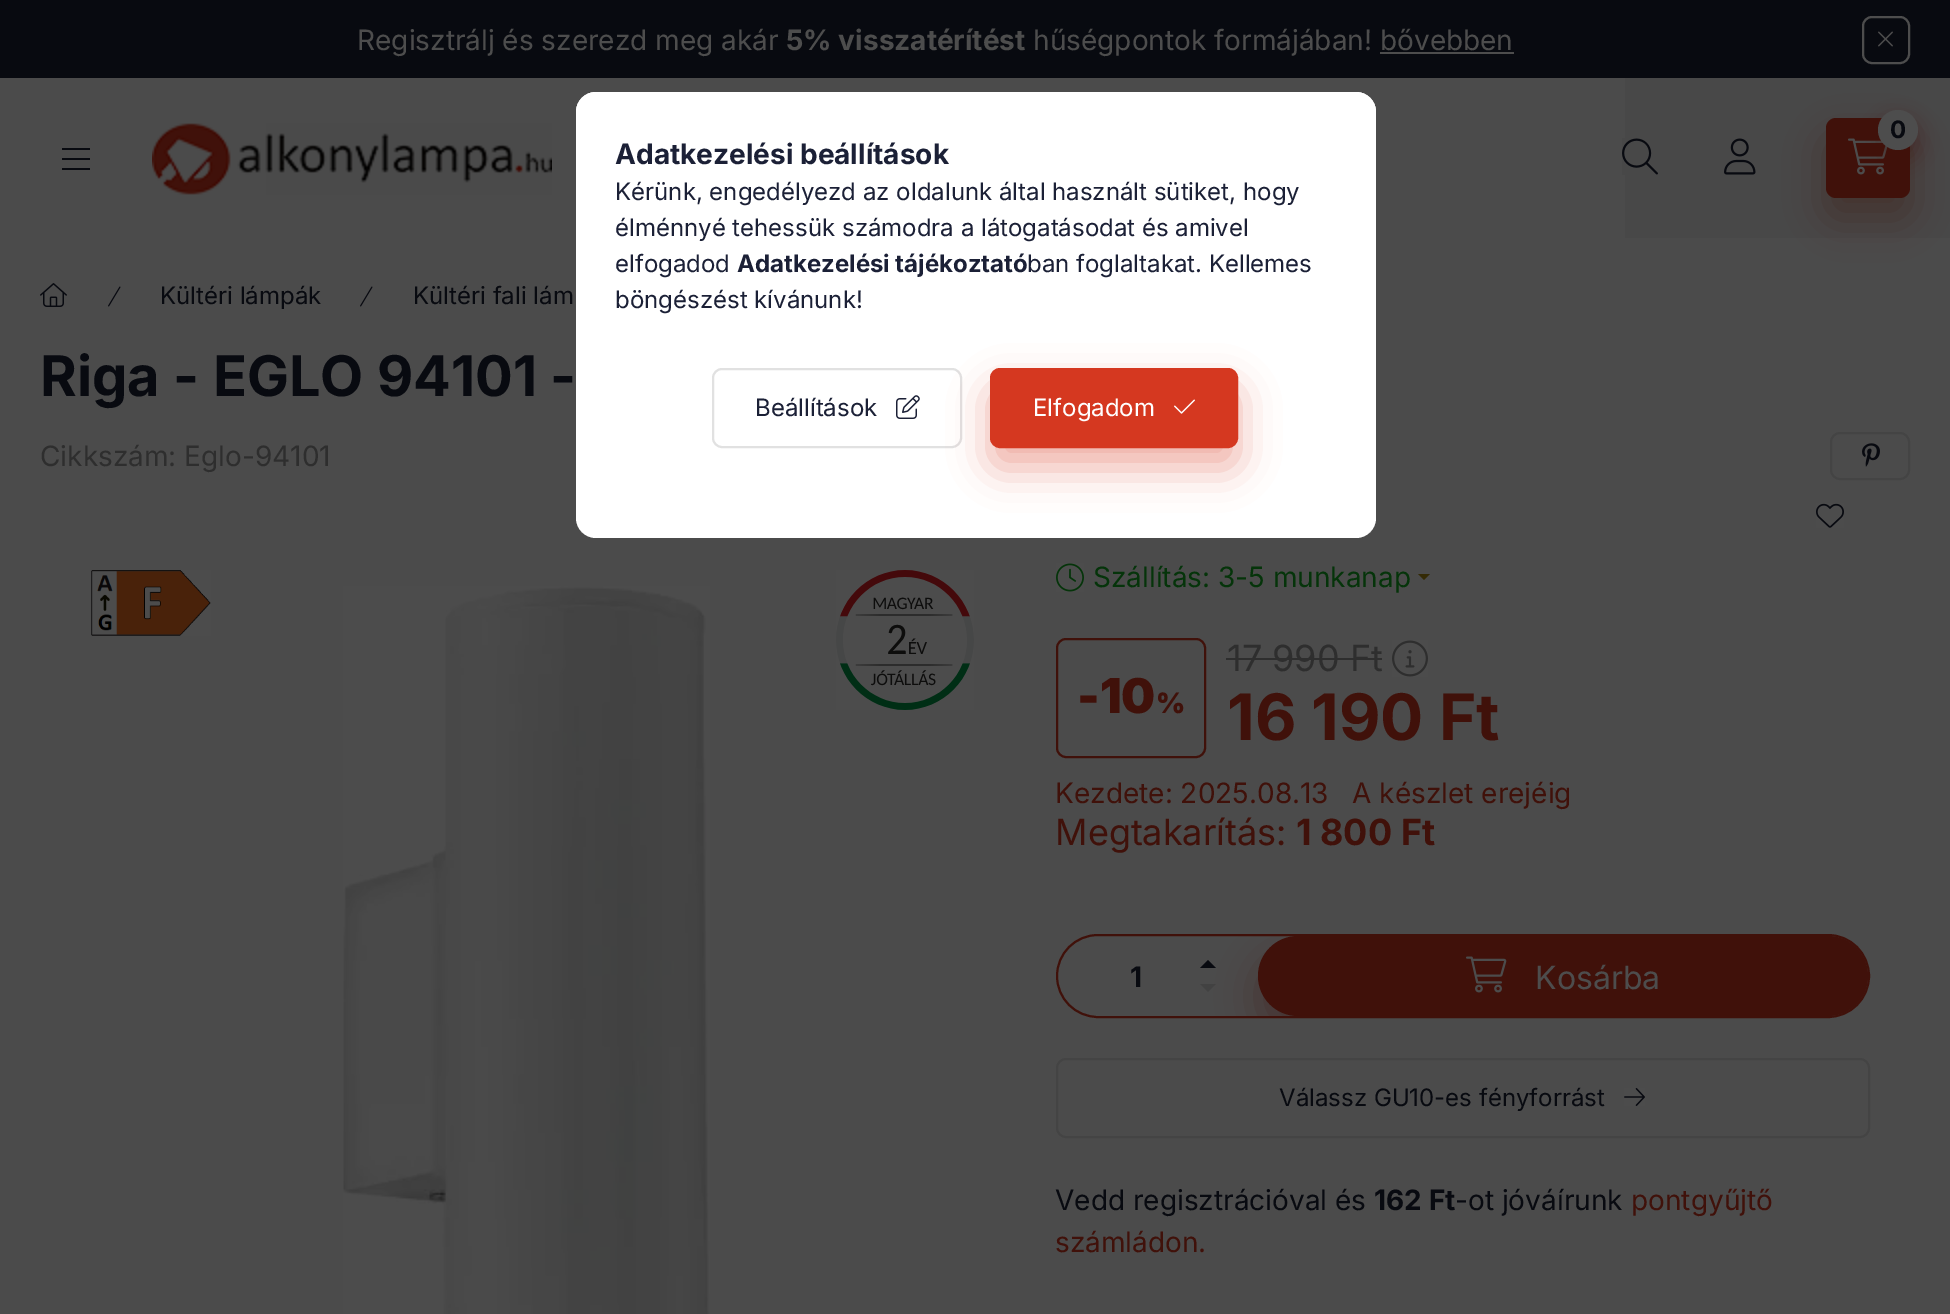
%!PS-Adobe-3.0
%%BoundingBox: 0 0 1950 1314
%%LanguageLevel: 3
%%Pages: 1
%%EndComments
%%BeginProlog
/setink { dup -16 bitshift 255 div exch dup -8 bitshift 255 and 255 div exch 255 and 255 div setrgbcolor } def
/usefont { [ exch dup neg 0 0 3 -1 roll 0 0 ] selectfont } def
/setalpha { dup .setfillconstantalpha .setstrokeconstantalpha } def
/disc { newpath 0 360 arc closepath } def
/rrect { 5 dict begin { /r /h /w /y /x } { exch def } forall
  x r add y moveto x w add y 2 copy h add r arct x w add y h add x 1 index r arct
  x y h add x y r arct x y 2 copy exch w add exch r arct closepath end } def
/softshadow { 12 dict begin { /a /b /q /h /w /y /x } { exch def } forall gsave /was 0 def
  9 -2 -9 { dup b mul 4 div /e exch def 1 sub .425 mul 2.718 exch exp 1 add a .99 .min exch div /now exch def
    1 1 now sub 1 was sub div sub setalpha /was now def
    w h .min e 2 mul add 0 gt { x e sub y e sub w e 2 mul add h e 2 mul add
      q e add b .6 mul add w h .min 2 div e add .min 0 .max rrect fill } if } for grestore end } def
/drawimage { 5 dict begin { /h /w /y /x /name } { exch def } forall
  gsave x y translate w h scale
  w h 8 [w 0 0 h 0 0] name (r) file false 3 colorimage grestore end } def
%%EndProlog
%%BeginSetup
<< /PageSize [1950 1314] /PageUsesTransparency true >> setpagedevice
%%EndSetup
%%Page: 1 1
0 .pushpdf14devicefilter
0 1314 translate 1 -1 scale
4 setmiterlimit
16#4B4B4B setink
0 0 1950 1314 rectfill
gsave 1625 78 moveto 1950 78 lineto 1950 238 lineto 1625 238 lineto closepath clip newpath
<< /ShadingType 2 /ColorSpace /DeviceRGB /Coords [0 657 1950 657] /Extend [true true] /Function << /FunctionType 2 /Domain [0 1] /C0 [0.294 0.294 0.294] /C1 [0.282 0.282 0.282] /N 1 >> >> shfill grestore
16#40110A setink
1826 138 84 80 10 20 0.4 softshadow
16#080A10 setink
40 0 1910 78 rectfill
gsave 0 0 moveto 40 0 lineto 40 78 lineto 0 78 lineto closepath clip newpath
<< /ShadingType 2 /ColorSpace /DeviceRGB /Coords [-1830 39 40 39] /Extend [true true] /Function << /FunctionType 3 /Domain [0 1] /Functions [<< /FunctionType 2 /Domain [0 1] /C0 [0.031 0.039 0.063] /C1 [0.165 0.169 0.184] /N 1 >> << /FunctionType 2 /Domain [0 1] /C0 [0.165 0.169 0.184] /C1 [0.031 0.039 0.063] /N 1 >>] /Bounds [0.5] /Encode [0 1 0 1] >> >> shfill grestore
/Inter-Regular 28 usefont
16#4D4D4D setink
357 50 moveto (Regisztrálj és szerezd meg akár) show
/Inter-Bold 28 usefont
786 50 moveto (5% visszatérítést) show
/Inter-Regular 28 usefont
1033 50 moveto (hűségpontok formájában! bővebben) show
1380 52 134 2 rectfill
2 setlinewidth
1863 17 46 46 9 rrect stroke
(img1.raw) 1878 31 15 16 drawimage
[
    [62 148 28 2 16#080A10]
    [62 158 28 2 16#080A10]
    [62 168 28 2 16#080A10]
] { aload pop setink rectfill } forall
(img2.raw) 152 123 400 72 drawimage
16#40110A setink
1826 118 84 80 10 rrect fill
(img3.raw) 1848 138 40 37 drawimage
1878 120 40 40 20 10 0.4 softshadow
16#4D4D4D setink
1898 130 20 disc fill
/Inter-Bold 24 usefont
16#080A10 setink
1890 138 moveto (0) show
(img4.raw) 1622 138 36 37 drawimage
(img5.raw) 1724 138 32 37 drawimage
(img6.raw) 40 283 27 24 drawimage
(img7.raw) 108 286 13 21 drawimage
/Inter-Regular 24 usefont
160 304 moveto (Kültéri lámpák) show
(img7.raw) 360 286 13 21 drawimage
413 304 moveto (Kültéri fali lám) show
/Inter-Bold 56 usefont
40 396 moveto (Riga - EGLO 94101 -) show
/Inter-Regular 28 usefont
16#2E2E2E setink
40 466 moveto (Cikkszám: Eglo-94101) show
16#444444 setink
1831 433 78 46 9 rrect stroke
(img8.raw) 1862 443 18 24 drawimage
(img9.raw) 1816 503 28 25 drawimage
(img10.raw) 91 570 120 66 drawimage
(img11.raw) 343 586 367 728 drawimage
(img12.raw) 836 570 138 140 drawimage
(img13.raw) 1056 563 28 29 drawimage
16#05340A setink
1093 587 moveto (Szállítás: 3-5 munkanap) show
16#342A05 setink
1418 574 moveto 1430 574 lineto 1424 580 lineto closepath fill
16#40110A setink
1057 639 148 118 9 rrect stroke
/Inter-Black 48 usefont
1077 713 moveto (-10) show
/Inter-Black 28 usefont
1156 713 moveto (%) show
/Inter-Regular 36 usefont
16#2E2E2E setink
1227 671 moveto (17 990 Ft) show
1226 658 156 2 rectfill
(img14.raw) 1392 640 36 37 drawimage
/Inter-Bold 64 usefont
16#40110A setink
1227 740 moveto (16 190 Ft) show
/Inter-Regular 28 usefont
1055 803 moveto (Kezdete: 2025.08.13) show
1352 803 moveto (A készlet erejéig) show
/Inter-Regular 36 usefont
1055 845 moveto (Megtakarítás:) show
/Inter-Bold 36 usefont
1296 845 moveto (1 800 Ft) show
1057 935 812 82 41 rrect stroke
/Inter-Bold 28 usefont
16#080A10 setink
1130 987 moveto (1) show
1216 968 moveto 1200 968 lineto 1208 960 lineto closepath fill
16#424242 setink
1200 984 moveto 1216 984 lineto 1208 992 lineto closepath fill
16#444444 setink
1057 1059 812 78 9 rrect stroke
(img16.raw) 1624 1088 21 18 drawimage
gsave
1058 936 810 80 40 rrect clip newpath
16#40110A setink
1258 956 610 80 40 20 0.4 softshadow
grestore
16#40110A setink
1258 936 610 80 40 rrect fill
(img15.raw) 1466 956 41 37 drawimage
/Inter-Regular 32 usefont
16#4D4D4D setink
1535 989 moveto (Kosárba) show
/Inter-Regular 24 usefont
16#080A10 setink
1279 1106 moveto (Válassz GU10-es fényforrást) show
/Inter-Regular 28 usefont
1055 1210 moveto (Vedd regisztrációval és) show
/Inter-Bold 28 usefont
1374 1210 moveto (162 Ft) show
/Inter-Regular 28 usefont
1455 1210 moveto (-ot jóváírunk) show
16#40110A setink
1631 1210 moveto (pontgyűjtő) show
1055 1252 moveto (számládon.) show
16#FFFFFF setink
576 92 800 446 20 rrect fill
596 92 moveto 1356 92 lineto 1367 92 1376 101 1376 112 curveto 1376 498 lineto 576 498 lineto 576 112 lineto 576 101 585 92 596 92 curveto closepath fill
/Inter-Bold 28 usefont
16#1B2036 setink
615 164 moveto (Adatkezelési beállítások) show
/Inter-Regular 24 usefont
[
    [(Kérünk, engedélyezd az oldalunk által használt sütiket, hogy) 615 200]
    [(élménnyé tehessük számodra a látogatásodat és amivel) 615 236]
    [(elfogadod) 615 272]
] { aload pop moveto show } forall
/Inter-Bold 24 usefont
737 272 moveto (Adatkezelési tájékoztató) show
/Inter-Regular 24 usefont
1027 272 moveto (ban foglaltakat. Kellemes) show
615 308 moveto (böngészést kívánunk!) show
16#E1E1E1 setink
713 369 248 78 9 rrect stroke
16#1B2036 setink
755 416 moveto (Beállítások) show
(img17.raw) 896 395 24 24 drawimage
16#D53820 setink
990 388 248 80 10 20 0.4 softshadow
991 369 246 78 9 rrect gsave fill grestore
stroke
16#FFFFFF setink
1033 416 moveto (Elfogadom) show
(img18.raw) 1174 399 21 15 drawimage
.poppdf14devicefilter showpage
%%EOF
